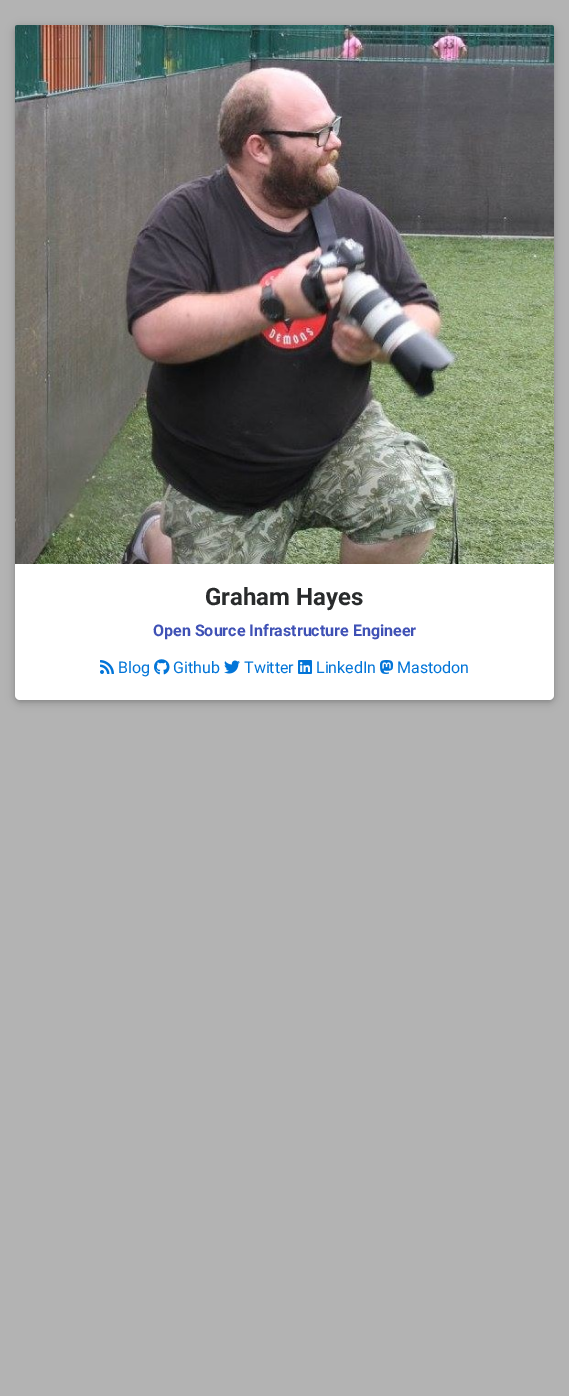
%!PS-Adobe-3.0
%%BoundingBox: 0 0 569 1396
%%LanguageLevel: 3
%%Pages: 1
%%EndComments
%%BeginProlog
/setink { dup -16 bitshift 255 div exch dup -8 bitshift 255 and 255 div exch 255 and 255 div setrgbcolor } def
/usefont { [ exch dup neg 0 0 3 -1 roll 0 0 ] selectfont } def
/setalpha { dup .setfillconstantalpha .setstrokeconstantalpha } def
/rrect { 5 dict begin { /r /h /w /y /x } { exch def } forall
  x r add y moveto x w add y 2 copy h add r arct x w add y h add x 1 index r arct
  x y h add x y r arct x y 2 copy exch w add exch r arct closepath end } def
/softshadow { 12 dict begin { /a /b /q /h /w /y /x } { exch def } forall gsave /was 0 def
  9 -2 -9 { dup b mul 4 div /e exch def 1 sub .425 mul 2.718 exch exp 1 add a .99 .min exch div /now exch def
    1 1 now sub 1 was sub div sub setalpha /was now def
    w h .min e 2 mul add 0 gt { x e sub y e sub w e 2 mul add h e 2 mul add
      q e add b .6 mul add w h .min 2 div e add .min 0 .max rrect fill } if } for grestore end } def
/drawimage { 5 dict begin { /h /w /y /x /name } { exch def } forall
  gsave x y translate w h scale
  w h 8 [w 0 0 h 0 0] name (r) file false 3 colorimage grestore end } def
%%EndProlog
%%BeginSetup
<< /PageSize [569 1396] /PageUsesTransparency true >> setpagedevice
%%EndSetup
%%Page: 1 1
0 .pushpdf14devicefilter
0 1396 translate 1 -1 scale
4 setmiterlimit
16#B3B3B3 setink
0 0 569 1396 rectfill
16#000000 setink
15 27 539 675 5 5 0.12 softshadow
15 27 539 675 5 2.5 0.16 softshadow
16#FFFFFF setink
15 25 539 675 5 rrect fill
(img1.raw) 15 25 539 539 drawimage
/Roboto-Bold 24 usefont
16#292B2C setink
205 605 moveto (Graham Hayes) show
/Roboto-Bold 16 usefont
16#3F51B5 setink
153 636 moveto (Open Source Infrastructure Engineer) show
(img2.raw) 100 660 14 14 drawimage
/Roboto-Regular 16 usefont
16#0275D8 setink
118 673 moveto (Blog) show
(img3.raw) 154 659 16 16 drawimage
173 673 moveto (Github) show
(img4.raw) 224 660 16 14 drawimage
244 673 moveto (Twitter) show
(img5.raw) 298 660 14 14 drawimage
316 673 moveto (LinkedIn) show
(img6.raw) 380 660 14 14 drawimage
397 673 moveto (Mastodon) show
.poppdf14devicefilter showpage
%%EOF
